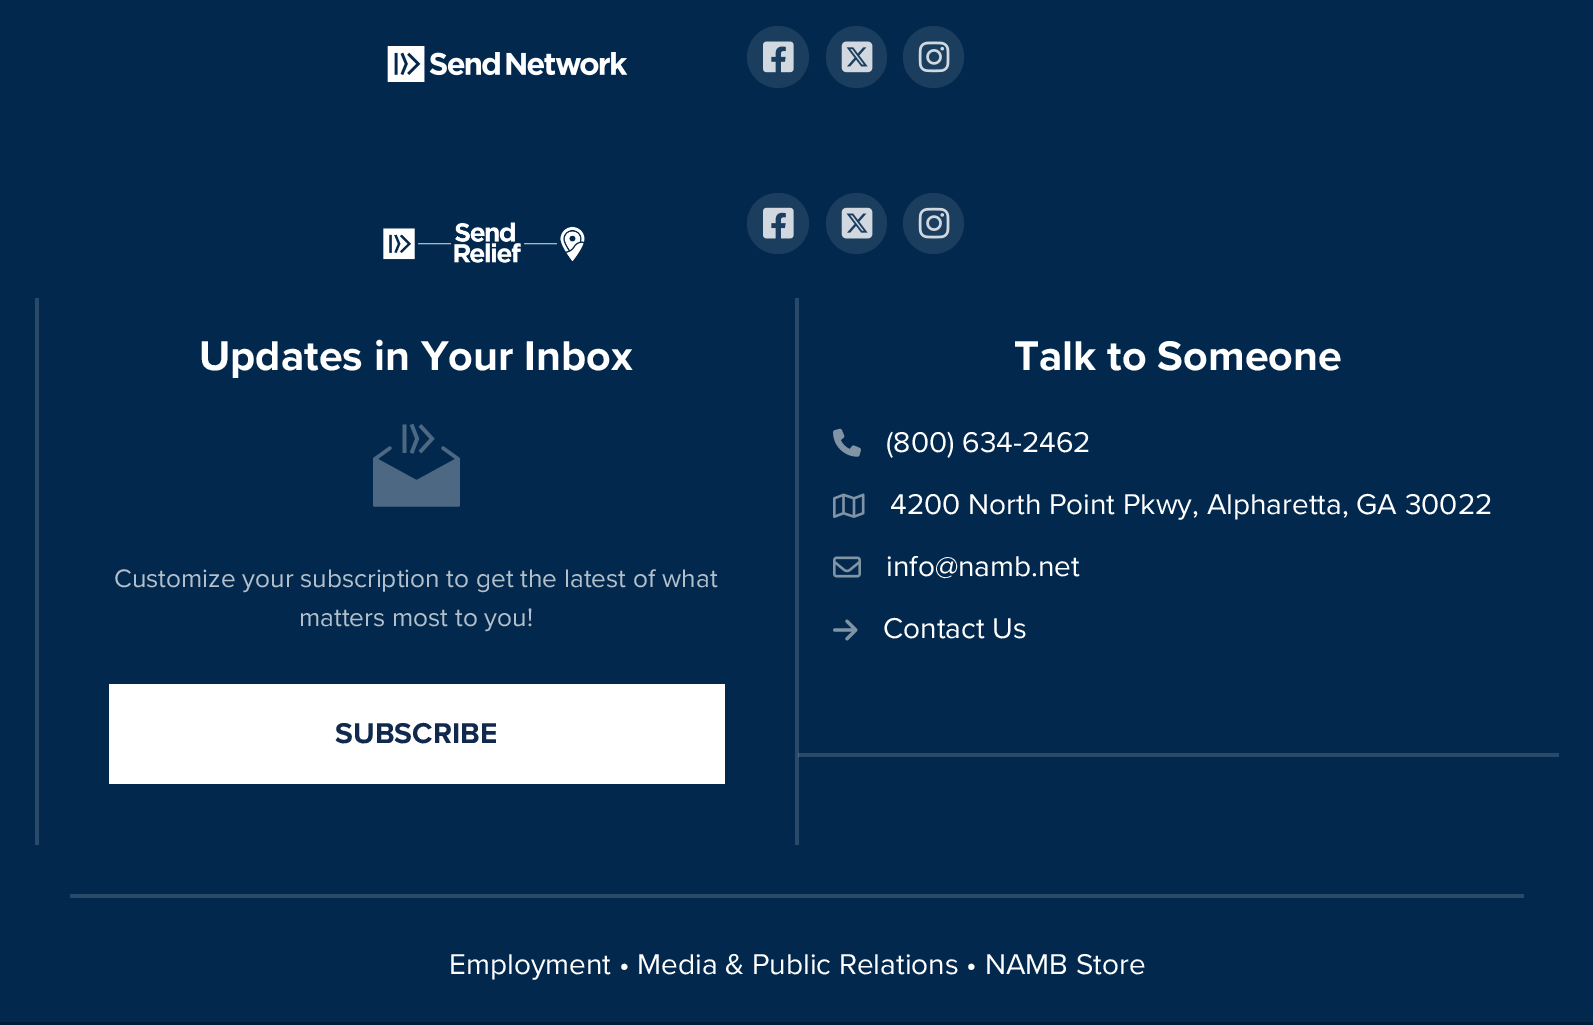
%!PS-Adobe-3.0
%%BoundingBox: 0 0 1593 1025
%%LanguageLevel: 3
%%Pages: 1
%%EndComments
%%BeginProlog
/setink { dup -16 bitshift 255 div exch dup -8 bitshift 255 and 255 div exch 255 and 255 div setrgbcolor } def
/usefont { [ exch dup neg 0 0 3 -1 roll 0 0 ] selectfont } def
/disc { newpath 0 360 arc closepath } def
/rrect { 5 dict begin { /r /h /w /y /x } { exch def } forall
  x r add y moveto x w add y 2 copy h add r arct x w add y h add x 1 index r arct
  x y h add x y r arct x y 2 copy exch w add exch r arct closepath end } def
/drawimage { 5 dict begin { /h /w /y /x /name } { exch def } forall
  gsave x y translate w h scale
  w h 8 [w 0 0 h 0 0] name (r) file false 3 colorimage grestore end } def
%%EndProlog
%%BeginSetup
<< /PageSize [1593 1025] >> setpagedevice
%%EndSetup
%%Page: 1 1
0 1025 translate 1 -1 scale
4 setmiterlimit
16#02284D setink
0 0 1593 1025 rectfill
16#2A4A69 setink
798 753 761 4 rectfill
(img1.raw) 387 46 241 36 drawimage
16#1B3E5F setink
778 57 31 disc fill
(img2.raw) 763 41 31 32 drawimage
826 26 61 62 30.5 rrect fill
(img3.raw) 841 41 32 32 drawimage
903 26 61 62 30.5 rrect fill
(img4.raw) 918 41 32 32 drawimage
(img5.raw) 383 222 202 41 drawimage
747 193 62 61 30.5 rrect fill
(img6.raw) 763 207 31 32 drawimage
856.5 223.5 30.5 disc fill
(img7.raw) 841 207 32 32 drawimage
933.5 223.5 30.5 disc fill
(img8.raw) 918 207 32 32 drawimage
[
    [795 298 4 547 16#2A4A69]
    [798 753 1 4 16#4C6781]
    [35 298 4 547 16#2A4A69]
] { aload pop setink rectfill } forall
/ProximaNova-Bold 43 usefont
16#FFFFFF setink
199 370 moveto (Updates in Your Inbox) show
(img9.raw) 373 424 87 83 drawimage
/ProximaNova-Regular 26.25 usefont
16#B3BFCA setink
114 587 moveto (Customize your subscription to get the latest of what) show
299 626 moveto (matters most to you!) show
16#FFFFFF setink
109 684 616 100 rectfill
/ProximaNova-Bold 29.75 usefont
16#10294C setink
335 743 moveto (SUBSCRIBE) show
/ProximaNova-Bold 43 usefont
16#FFFFFF setink
1014 370 moveto (Talk to Someone) show
(img10.raw) 833 428 28 29 drawimage
/ProximaNova-Regular 29.75 usefont
886 452 moveto (\(800\) 634-2462) show
(img11.raw) 833 493 32 25 drawimage
890 514 moveto (4200 North Point Pkwy, Alpharetta, GA 30022) show
(img12.raw) 833 556 28 22 drawimage
886 576 moveto (info@namb.net) show
(img13.raw) 833 619 25 22 drawimage
883 638 moveto (Contact Us) show
16#2A4A69 setink
70 894 1454 4 rectfill
16#FFFFFF setink
449 974 moveto (Employment • Media & Public Relations • NAMB Store) show
16#011C3A setink
0 1022 1593 3 rectfill
showpage
%%EOF
